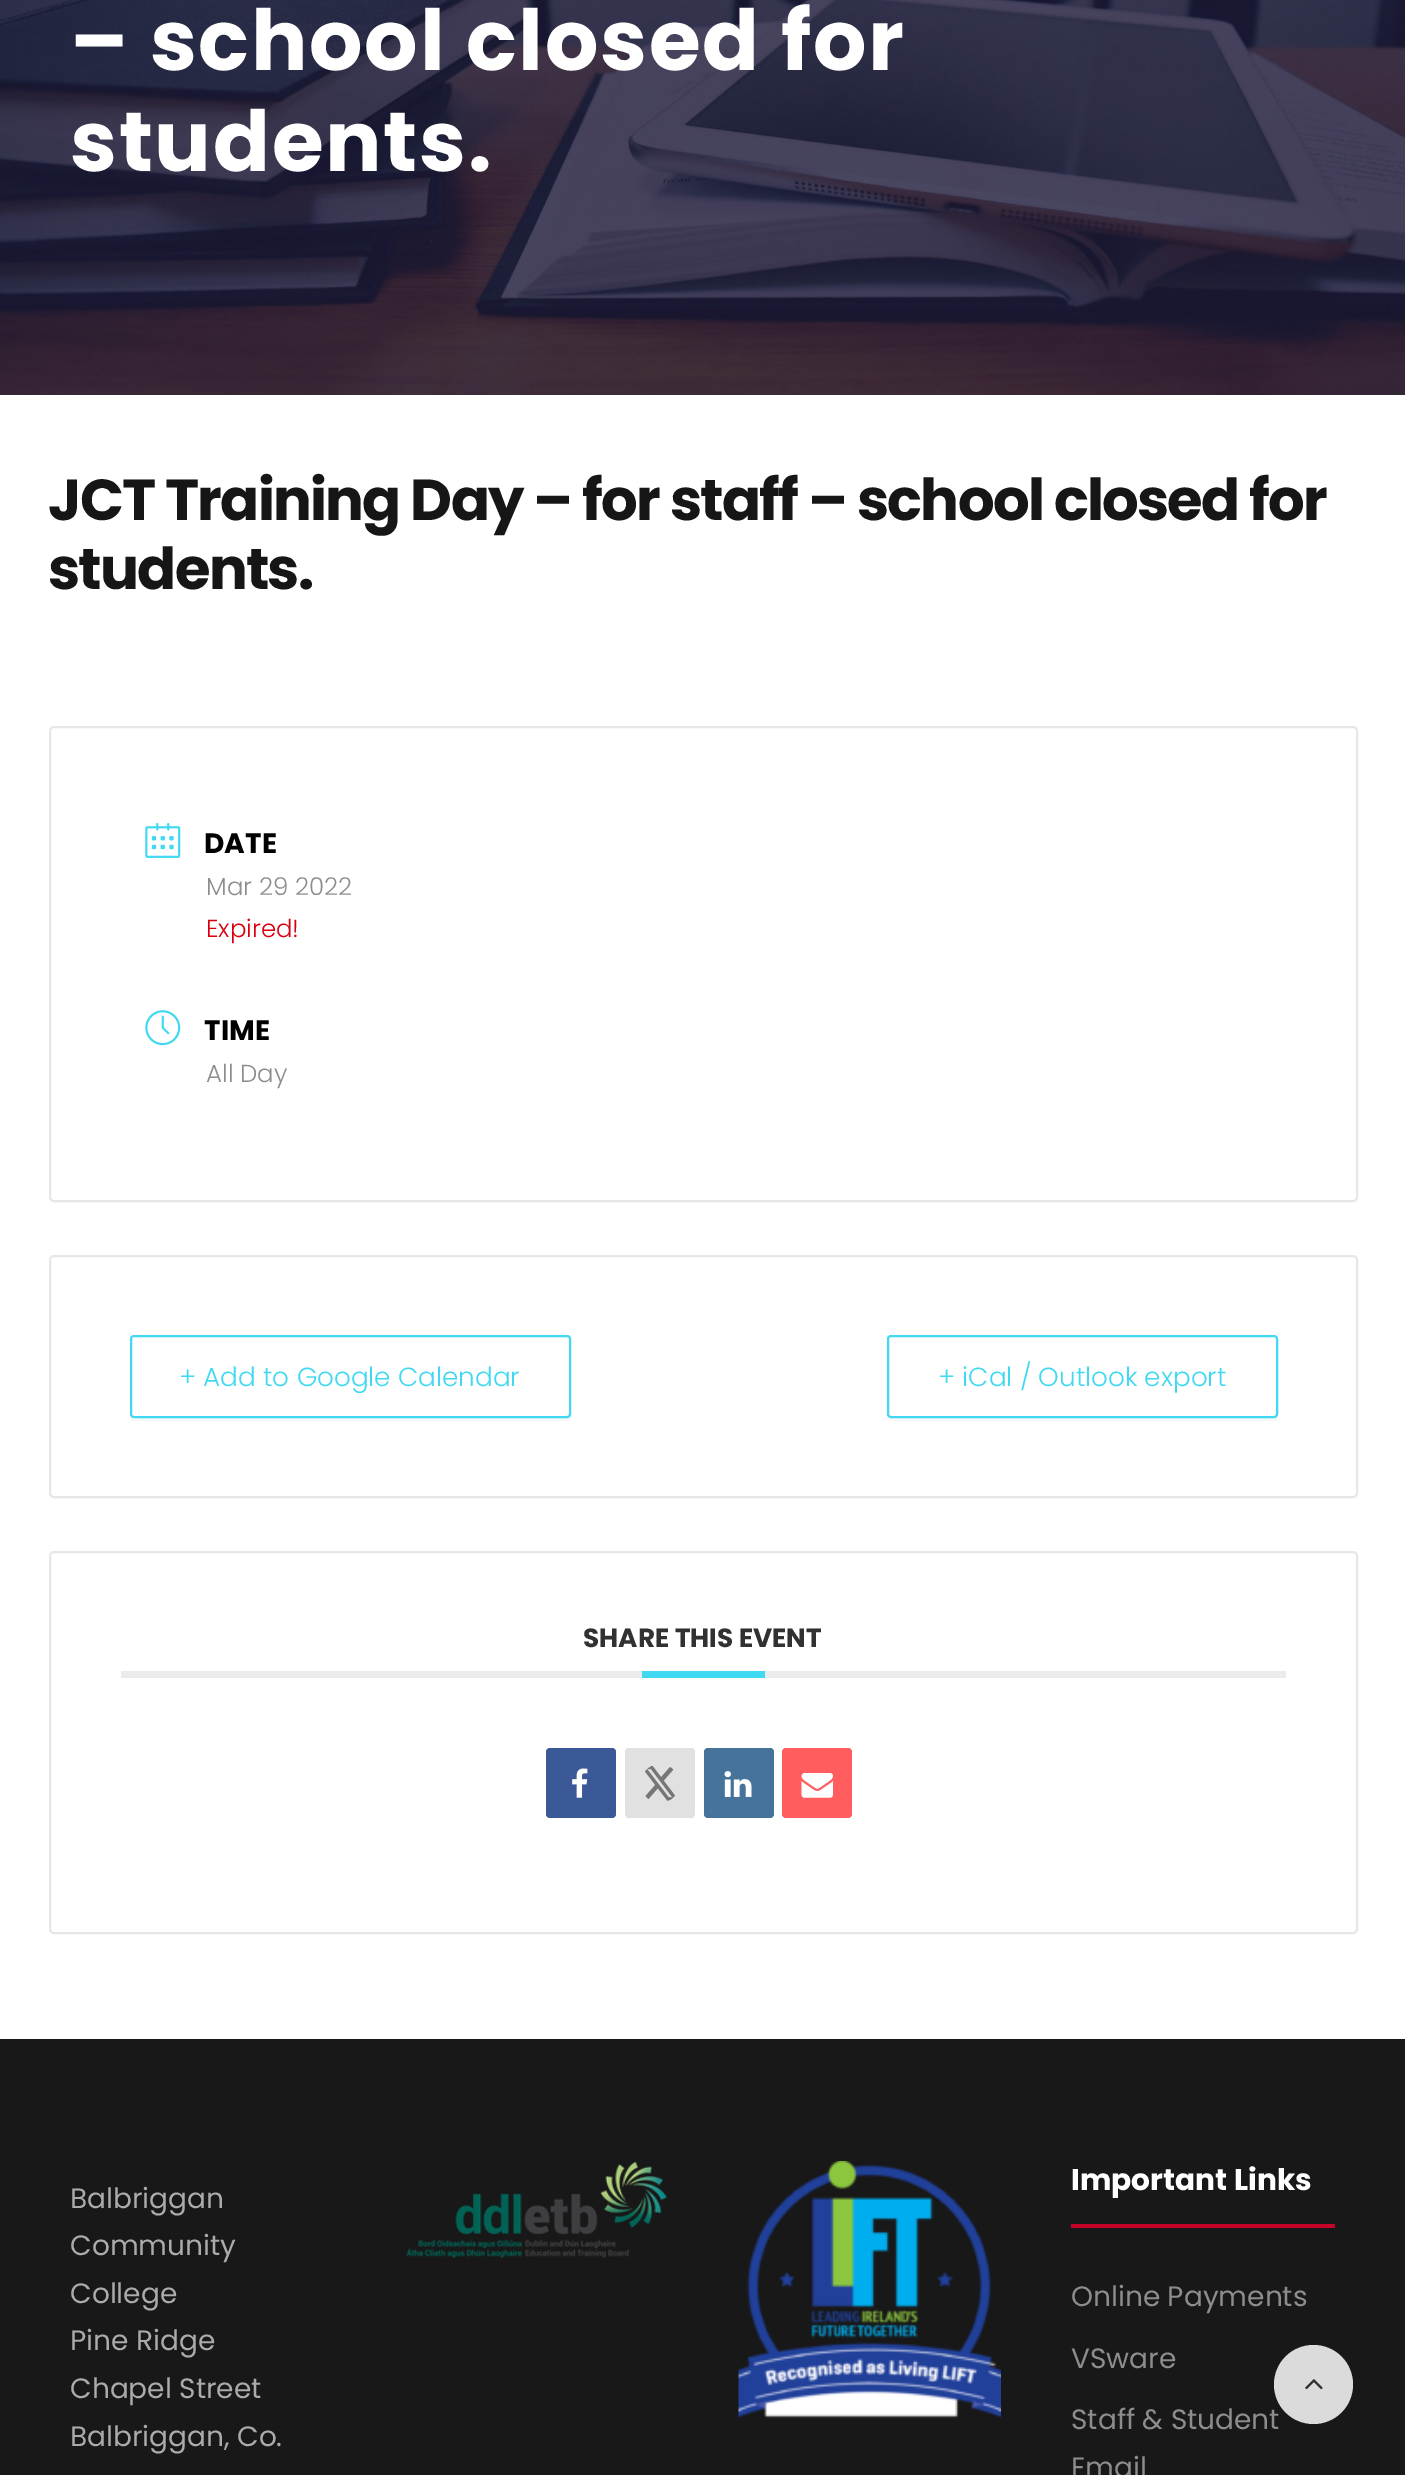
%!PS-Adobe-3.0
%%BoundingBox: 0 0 1405 2475
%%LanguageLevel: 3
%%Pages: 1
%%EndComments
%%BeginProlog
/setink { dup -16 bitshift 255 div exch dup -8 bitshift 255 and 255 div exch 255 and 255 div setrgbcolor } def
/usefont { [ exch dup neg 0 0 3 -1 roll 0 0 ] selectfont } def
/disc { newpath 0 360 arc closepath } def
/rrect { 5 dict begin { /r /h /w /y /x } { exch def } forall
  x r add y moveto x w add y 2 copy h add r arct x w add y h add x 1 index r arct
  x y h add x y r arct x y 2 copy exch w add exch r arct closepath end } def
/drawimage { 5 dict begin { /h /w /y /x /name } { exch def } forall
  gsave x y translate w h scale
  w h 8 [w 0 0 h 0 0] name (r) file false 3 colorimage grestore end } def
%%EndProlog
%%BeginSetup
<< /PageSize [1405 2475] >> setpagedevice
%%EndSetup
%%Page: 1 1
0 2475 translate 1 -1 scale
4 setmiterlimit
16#FFFFFF setink
0 0 1405 2475 rectfill
(img1.raw) 0 0 1405 395 drawimage
/Poppins-Bold 84 usefont
70 70 moveto 1.75 0 (– school closed for) ashow
70 171 moveto 1.75 0 (students.) ashow
/Poppins-Bold 57.75 usefont
16#161616 setink
48 520 moveto -1.75 0 (JCT Training Day – for staff – school closed for) ashow
48 589 moveto -1.75 0 (students.) ashow
16#E6E7E8 setink
2 setlinewidth
50 727 1307 474 4 rrect stroke
(img2.raw) 145 823 36 35 drawimage
/Poppins-Bold 28 usefont
16#000000 setink
204 853 moveto (DATE) show
/Poppins-Light 24.5 usefont
16#8D8D8D setink
206 895 moveto (Mar 29 2022) show
16#D8000C setink
206 937 moveto (Expired!) show
(img3.raw) 145 1010 36 36 drawimage
/Poppins-Bold 28 usefont
16#000000 setink
204 1040 moveto (TIME) show
/Poppins-Light 24.5 usefont
16#8D8D8D setink
206 1082 moveto (All Day) show
16#E6E7E8 setink
50 1256 1307 241 4 rrect stroke
16#F7F7F7 setink
130 1416 moveto 130 1417 lineto 130 1419 132 1421 134 1421 curveto 567 1421 lineto 569 1421 571 1419 571 1417 curveto 571 1343 lineto 570 1341 lineto 570 1414 lineto 570 1416 569 1418 567 1418 curveto 133 1418 lineto 132 1418 131 1417 130 1416 curveto closepath fill
16#FFFFFF setink
131 1336 439 81 3 rrect gsave fill grestore
16#40D9F1 setink
stroke
/Poppins-Light 26.25 usefont
179 1386 moveto (+ Add to Google Calendar) show
16#F7F7F7 setink
887 1342 moveto 887 1417 lineto 887 1419 889 1421 891 1421 curveto 1274 1421 lineto 1276 1421 1278 1419 1278 1417 curveto 1278 1343 lineto 1278 1341 lineto 1278 1414 lineto 1278 1416 1276 1418 1274 1418 curveto 891 1418 lineto 889 1418 887 1416 887 1414 curveto closepath fill
16#40D9F1 setink
888 1336 389 81 3 rrect stroke
938 1386 moveto (+ iCal / Outlook export) show
16#E6E7E8 setink
50 1552 1307 381 4 rrect stroke
16#EBEBEB setink
121 1671 1165 7 rectfill
/Poppins-Bold 26.25 usefont
16#313131 setink
583 1647 moveto (SHARE THIS EVENT) show
16#40D9F1 setink
642 1671 123 7 rectfill
16#3B5996 setink
546 1748 70 70 4 rrect fill
(img4.raw) 572 1768 16 30 drawimage
16#E1E1E1 setink
625 1748 70 70 4 rrect fill
(img5.raw) 645 1765 30 36 drawimage
16#457399 setink
704 1748 70 70 4 rrect fill
(img6.raw) 724 1771 28 26 drawimage
16#FF5D5E setink
782 1748 70 70 4 rrect fill
(img7.raw) 801 1773 32 25 drawimage
16#181818 setink
0 2039 1405 436 rectfill
/Poppins-Regular 28 usefont
16#ABABAB setink
[
    [(Balbriggan) 70 2208]
    [(Community) 70 2255]
    [(College) 70 2303]
    [(Pine Ridge) 70 2350]
    [(Chapel Street) 70 2398]
    [(Balbriggan, Co.) 70 2446]
] { aload pop moveto show } forall
(img8.raw) 406 2161 262 97 drawimage
(img9.raw) 738 2160 263 259 drawimage
16#C50227 setink
1071 2224 264 4 rectfill
/Poppins-Bold 29.75 usefont
16#FFFFFF setink
1071 2190 moveto (Important Links) show
/Poppins-Regular 28 usefont
16#8D8D8D setink
[
    [(Online Payments) 1071 2306]
    [(VSware) 1071 2368]
    [(Staff & Student) 1071 2429]
    [(Email) 1071 2477]
] { aload pop moveto show } forall
16#DBDBDB setink
1313.5 2384.5 39.5 disc fill
(img10.raw) 1305 2379 18 11 drawimage
showpage
%%EOF
